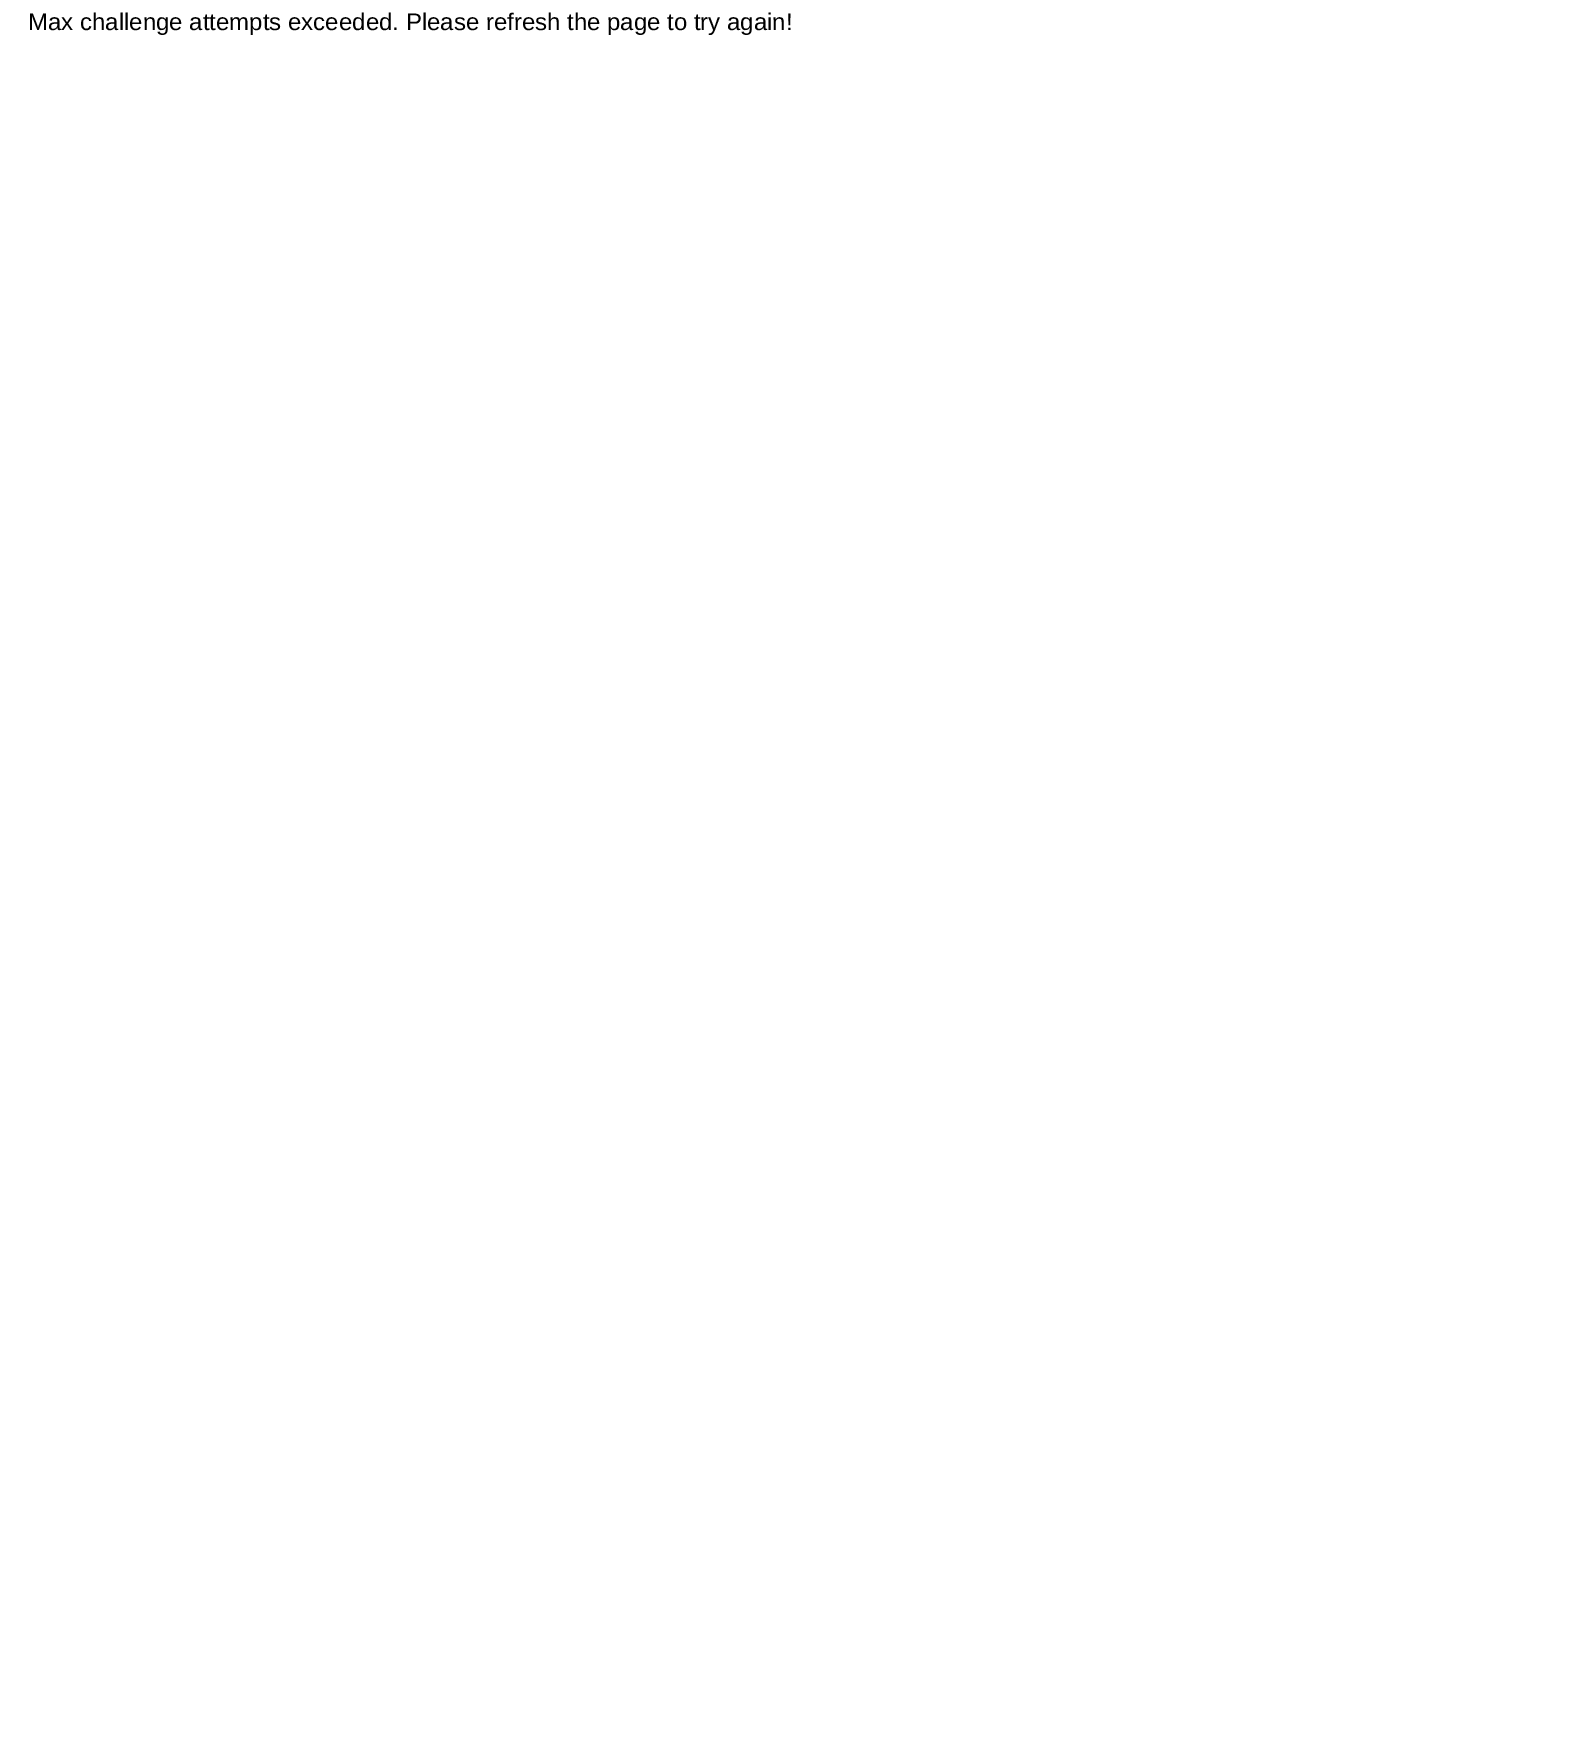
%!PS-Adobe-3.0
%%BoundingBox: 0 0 1584 1753
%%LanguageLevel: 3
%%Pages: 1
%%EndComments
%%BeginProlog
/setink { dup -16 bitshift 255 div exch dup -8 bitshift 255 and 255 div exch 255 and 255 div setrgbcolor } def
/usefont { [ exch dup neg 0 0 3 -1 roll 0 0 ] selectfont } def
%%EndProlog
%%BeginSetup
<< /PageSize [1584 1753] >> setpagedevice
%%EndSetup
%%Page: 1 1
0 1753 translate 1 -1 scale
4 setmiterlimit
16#FFFFFF setink
0 0 1584 1753 rectfill
/LiberationSans-Regular 24 usefont
16#000000 setink
28 30 moveto (Max challenge attempts exceeded. Please refresh the page to try again!) show
showpage
%%EOF
